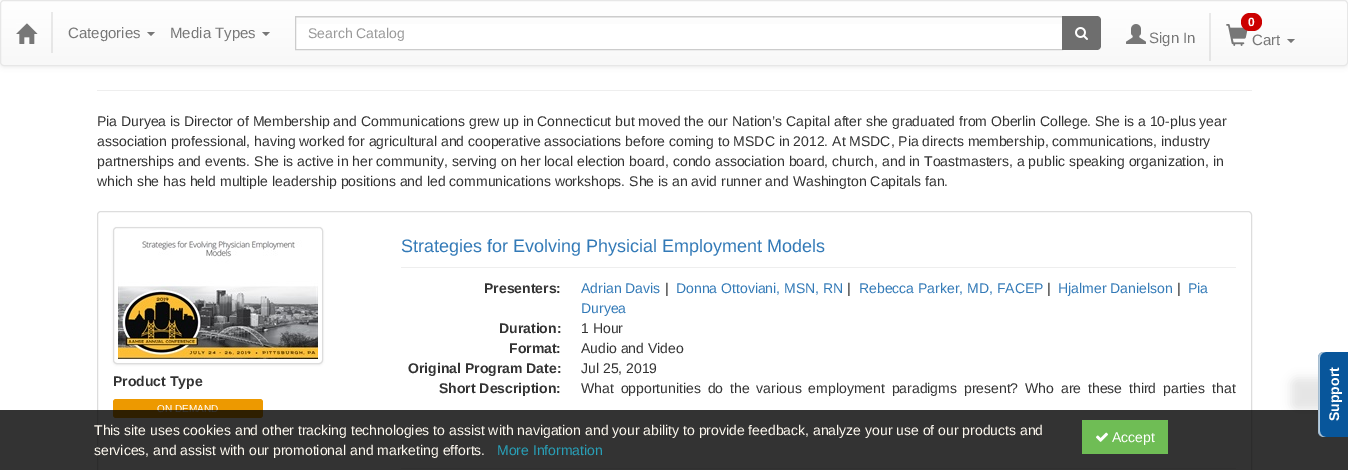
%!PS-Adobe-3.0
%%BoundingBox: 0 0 1348 470
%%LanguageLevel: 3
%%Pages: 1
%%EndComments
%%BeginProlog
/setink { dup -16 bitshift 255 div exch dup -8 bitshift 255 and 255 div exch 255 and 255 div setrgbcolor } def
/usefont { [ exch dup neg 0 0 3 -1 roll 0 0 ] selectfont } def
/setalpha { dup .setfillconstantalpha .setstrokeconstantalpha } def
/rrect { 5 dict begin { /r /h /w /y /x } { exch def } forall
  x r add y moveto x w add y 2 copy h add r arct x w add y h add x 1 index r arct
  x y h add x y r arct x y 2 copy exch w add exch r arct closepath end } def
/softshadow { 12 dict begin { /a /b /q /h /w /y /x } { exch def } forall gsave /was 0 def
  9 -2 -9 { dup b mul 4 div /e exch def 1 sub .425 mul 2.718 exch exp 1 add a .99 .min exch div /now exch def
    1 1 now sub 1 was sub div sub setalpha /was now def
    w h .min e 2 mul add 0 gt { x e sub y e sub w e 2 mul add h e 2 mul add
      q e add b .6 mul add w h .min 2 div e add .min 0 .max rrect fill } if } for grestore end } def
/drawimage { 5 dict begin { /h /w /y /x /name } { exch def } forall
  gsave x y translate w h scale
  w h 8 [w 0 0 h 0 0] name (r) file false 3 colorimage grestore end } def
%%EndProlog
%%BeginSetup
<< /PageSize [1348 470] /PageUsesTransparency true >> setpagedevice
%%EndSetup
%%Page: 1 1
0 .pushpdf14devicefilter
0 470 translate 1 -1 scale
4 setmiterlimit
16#FFFFFF setink
0 0 1348 470 rectfill
16#000000 setink
0 1 1348 66 4 2.5 0.07 softshadow
gsave
0 0 1348 66 4 rrect clip newpath
gsave 0 1 moveto 1348 1 lineto 1348 65 lineto 0 65 lineto closepath clip newpath
<< /ShadingType 2 /ColorSpace /DeviceRGB /Coords [674 1 674 65] /Extend [true true] /Function << /FunctionType 2 /Domain [0 1] /C0 [1 1 1] /C1 [0.973 0.973 0.973] /N 1 >> >> shfill grestore
grestore
gsave 1209 13 moveto 1211 13 lineto 1211 61 lineto 1209 61 lineto closepath clip newpath
<< /ShadingType 2 /ColorSpace /DeviceRGB /Coords [674 1 674 65] /Extend [true true] /Function << /FunctionType 2 /Domain [0 1] /C0 [0.922 0.922 0.922] /C1 [0.898 0.898 0.898] /N 1 >> >> shfill grestore
gsave 51 12 moveto 53 12 lineto 53 53 lineto 51 53 lineto closepath clip newpath
<< /ShadingType 2 /ColorSpace /DeviceRGB /Coords [674 1 674 65] /Extend [true true] /Function << /FunctionType 2 /Domain [0 1] /C0 [0.922 0.922 0.922] /C1 [0.898 0.898 0.898] /N 1 >> >> shfill grestore
16#E7E7E7 setink
0.5 0.5 1347 65 3.5 rrect stroke
(img1.raw) 16 23 22 21 drawimage
/LiberationSans-Regular 15 usefont
16#777777 setink
68 38 moveto (Categories) show
147 32 moveto 155 32 lineto 151 36 lineto closepath fill
170 38 moveto (Media Types) show
262 32 moveto 270 32 lineto 266 36 lineto closepath fill
16#FFFFFF setink
296 24 766 25 rectfill
16#ECECEC setink
296 17 766 1 rectfill
16#CCCCCC setink
295.5 16.5 767 33 rectstroke
/LiberationSans-Regular 14 usefont
16#999999 setink
308 38 moveto (Search Catalog) show
16#6E6E6E setink
1062 16 moveto 1097 16 lineto 1099 16 1101 18 1101 20 curveto 1101 46 lineto 1101 48 1099 50 1097 50 curveto 1062 50 lineto closepath fill
(img2.raw) 1075 27 13 13 drawimage
(img3.raw) 1126 24 20 20 drawimage
/LiberationSans-Regular 15 usefont
16#777777 setink
1149 43 moveto (Sign In) show
(img4.raw) 1226 24 22 22 drawimage
16#CC0000 setink
1241 13 21 18 9 rrect fill
/LiberationSans-Bold 12 usefont
16#FFFFFF setink
1248 26 moveto (0) show
/LiberationSans-Regular 15 usefont
16#777777 setink
1252 45 moveto (Cart) show
1287 39 moveto 1295 39 lineto 1291 43 lineto closepath fill
16#EEEEEE setink
97 90 1155 1 rectfill
/LiberationSans-Regular 14 usefont
16#333333 setink
[
    [(Pia Duryea is Director of Membership and Communications grew up in Connecticut but moved the our Nation’s Capital after she graduated from Oberlin College. She is a 10-plus year) 97 126]
    [(association professional, having worked for agricultural and cooperative associations before coming to MSDC in 2012. At MSDC, Pia directs membership, communications, industry) 97 146]
    [(partnerships and events. She is active in her community, serving on her local election board, condo association board, church, and in Toastmasters, a public speaking organization, in) 97 166]
    [(which she has held multiple leadership positions and led communications workshops. She is an avid runner and Washington Capitals fan.) 97 186]
] { aload pop moveto show } forall
16#DDDDDD setink
97.5 211.5 1154 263 3.5 rrect stroke
16#000000 setink
113 228 210 137 4 1 0.07 softshadow
16#FFFFFF setink
113.5 227.5 209 136 3.5 rrect gsave fill grestore
16#DDDDDD setink
stroke
(img5.raw) 118 240 200 119 drawimage
/LiberationSans-Bold 14 usefont
16#333333 setink
113 386 moveto (Product Type) show
16#ED9900 setink
113 399 150 19 3 rrect fill
/LiberationSans-Regular 10 usefont
16#FFFFFF setink
157 412 moveto (ON DEMAND) show
/LiberationSans-Regular 18 usefont
16#337AB7 setink
401 252 moveto (Strategies for Evolving Physicial Employment Models) show
16#EEEEEE setink
401 267 835 1 rectfill
/LiberationSans-Bold 14 usefont
16#333333 setink
484 293 moveto (Presenters:) show
/LiberationSans-Regular 14 usefont
16#337AB7 setink
581 293 moveto (Adrian Davis) show
16#333333 setink
665 293 moveto (|) show
16#337AB7 setink
676 293 moveto (Donna Ottoviani, MSN, RN) show
16#333333 setink
847 293 moveto (|) show
16#337AB7 setink
859 293 moveto (Rebecca Parker, MD, FACEP) show
16#333333 setink
1047 293 moveto (|) show
16#337AB7 setink
1058 293 moveto (Hjalmer Danielson) show
16#333333 setink
1177 293 moveto (|) show
16#337AB7 setink
1188 293 moveto (Pia) show
581 313 moveto (Duryea) show
/LiberationSans-Bold 14 usefont
16#333333 setink
499 333 moveto (Duration:) show
/LiberationSans-Regular 14 usefont
581 333 moveto (1 Hour) show
/LiberationSans-Bold 14 usefont
509 353 moveto (Format:) show
/LiberationSans-Regular 14 usefont
581 353 moveto (Audio and Video) show
/LiberationSans-Bold 14 usefont
408 373 moveto (Original Program Date:) show
/LiberationSans-Regular 14 usefont
581 373 moveto (Jul 25, 2019) show
/LiberationSans-Bold 14 usefont
439 393 moveto (Short Description:) show
/LiberationSans-Regular 14 usefont
581 393 moveto 3 0 32 (What opportunities do the various employment paradigms present? Who are these third parties that) widthshow
16#EEEEEE setink
401 468 835 1 rectfill
0.8 setalpha
16#000000 setink
0 410 1348 60 rectfill
1 setalpha
1291 378 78 32 6 5 0.1 softshadow
16#08569B setink
1318 431 moveto 1318 358 lineto 1318 354 1321 352 1324 352 curveto 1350 352 lineto 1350 437 lineto 1324 437 lineto 1321 437 1318 435 1318 431 curveto closepath fill
0.7 setalpha
16#FFFFFF setink
1320 431 moveto 1320 358 lineto 1320 354 1323 352 1326 352 curveto 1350 352 lineto 1324 352 lineto 1321 352 1318 354 1318 358 curveto 1318 431 lineto 1318 435 1321 437 1324 437 curveto 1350 437 lineto 1326 437 lineto 1323 437 1320 435 1320 431 curveto closepath fill
0.08 setalpha
16#000000 setink
1319 431 moveto 1319 358 lineto 1319 354 1322 352 1325 352 curveto 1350 352 lineto 1324 352 lineto 1321 352 1318 354 1318 358 curveto 1318 431 lineto 1318 435 1321 437 1324 437 curveto 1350 437 lineto 1325 437 lineto 1322 437 1319 435 1319 431 curveto closepath fill
/LiberationSans-Bold 14 usefont
1 setalpha
16#FFFFFF setink
gsave 1339 421 translate -90 rotate 0 0 moveto (Support) show grestore
/LiberationSans-Regular 14 usefont
16#FFFAF0 setink
94 435 moveto (This site uses cookies and other tracking technologies to assist with navigation and your ability to provide feedback, analyze your use of our products and) show
94 455 moveto (services, and assist with our promotional and marketing efforts.) show
16#289FB7 setink
497 455 moveto (More Information) show
16#6FBD55 setink
1082 420 86 34 rectfill
(img6.raw) 1096 432 12 10 drawimage
16#FFFFFF setink
1112 442 moveto (Accept) show
.poppdf14devicefilter showpage
%%EOF
